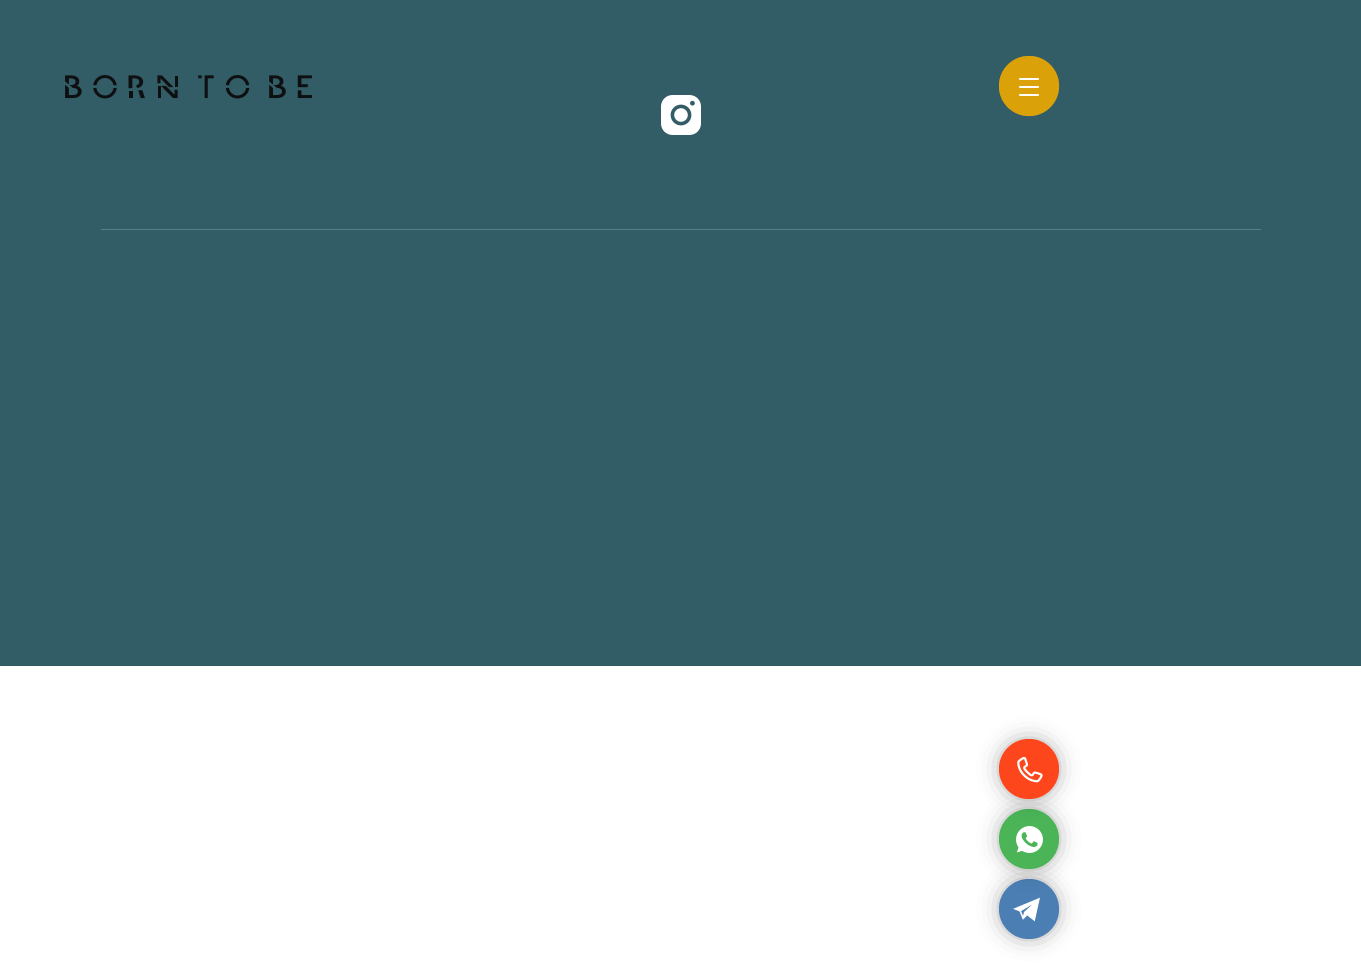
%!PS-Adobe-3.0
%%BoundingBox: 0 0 1361 969
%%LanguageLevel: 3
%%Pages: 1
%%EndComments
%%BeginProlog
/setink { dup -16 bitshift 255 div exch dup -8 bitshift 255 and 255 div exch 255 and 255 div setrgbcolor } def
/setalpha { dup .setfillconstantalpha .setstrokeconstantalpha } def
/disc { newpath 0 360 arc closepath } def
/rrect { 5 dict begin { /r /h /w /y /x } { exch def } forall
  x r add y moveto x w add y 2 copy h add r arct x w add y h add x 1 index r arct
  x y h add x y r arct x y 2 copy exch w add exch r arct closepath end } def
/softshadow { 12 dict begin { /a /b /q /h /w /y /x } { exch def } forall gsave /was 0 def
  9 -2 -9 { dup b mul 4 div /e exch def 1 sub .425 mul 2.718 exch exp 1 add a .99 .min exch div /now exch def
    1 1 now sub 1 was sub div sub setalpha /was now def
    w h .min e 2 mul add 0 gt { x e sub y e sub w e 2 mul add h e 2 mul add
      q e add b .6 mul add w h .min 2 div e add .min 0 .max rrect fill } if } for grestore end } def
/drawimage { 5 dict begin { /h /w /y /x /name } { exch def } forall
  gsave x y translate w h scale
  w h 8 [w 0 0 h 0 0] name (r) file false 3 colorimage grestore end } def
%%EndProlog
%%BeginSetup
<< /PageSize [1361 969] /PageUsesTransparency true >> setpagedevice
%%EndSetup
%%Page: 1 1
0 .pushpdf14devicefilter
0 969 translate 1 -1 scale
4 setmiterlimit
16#FFFFFF setink
0 0 1361 969 rectfill
16#325D66 setink
0 0 1361 666 rectfill
(img1.raw) 661 95 40 40 drawimage
16#5B7D85 setink
101 229 1160 1 rectfill
16#000000 setink
999 879 60 60 30 10 0.3 softshadow
16#4B7FB4 setink
1029 909 30 disc fill
(img4.raw) 1013 897 27 25 drawimage
16#000000 setink
999 809 60 60 30 10 0.3 softshadow
16#4BB457 setink
1029 839 30 disc fill
(img3.raw) 1016 826 27 27 drawimage
16#000000 setink
999 739 60 60 30 10 0.3 softshadow
16#FD461C setink
1029 769 30 disc fill
(img2.raw) 1017 756 26 27 drawimage
(img5.raw) 65 75 247 24 drawimage
16#DBA109 setink
1029 86 30 disc fill
0.4 setalpha
1029 86 29.5 disc stroke
1 setalpha
(img6.raw) 1019 78 20 18 drawimage
.poppdf14devicefilter showpage
%%EOF
